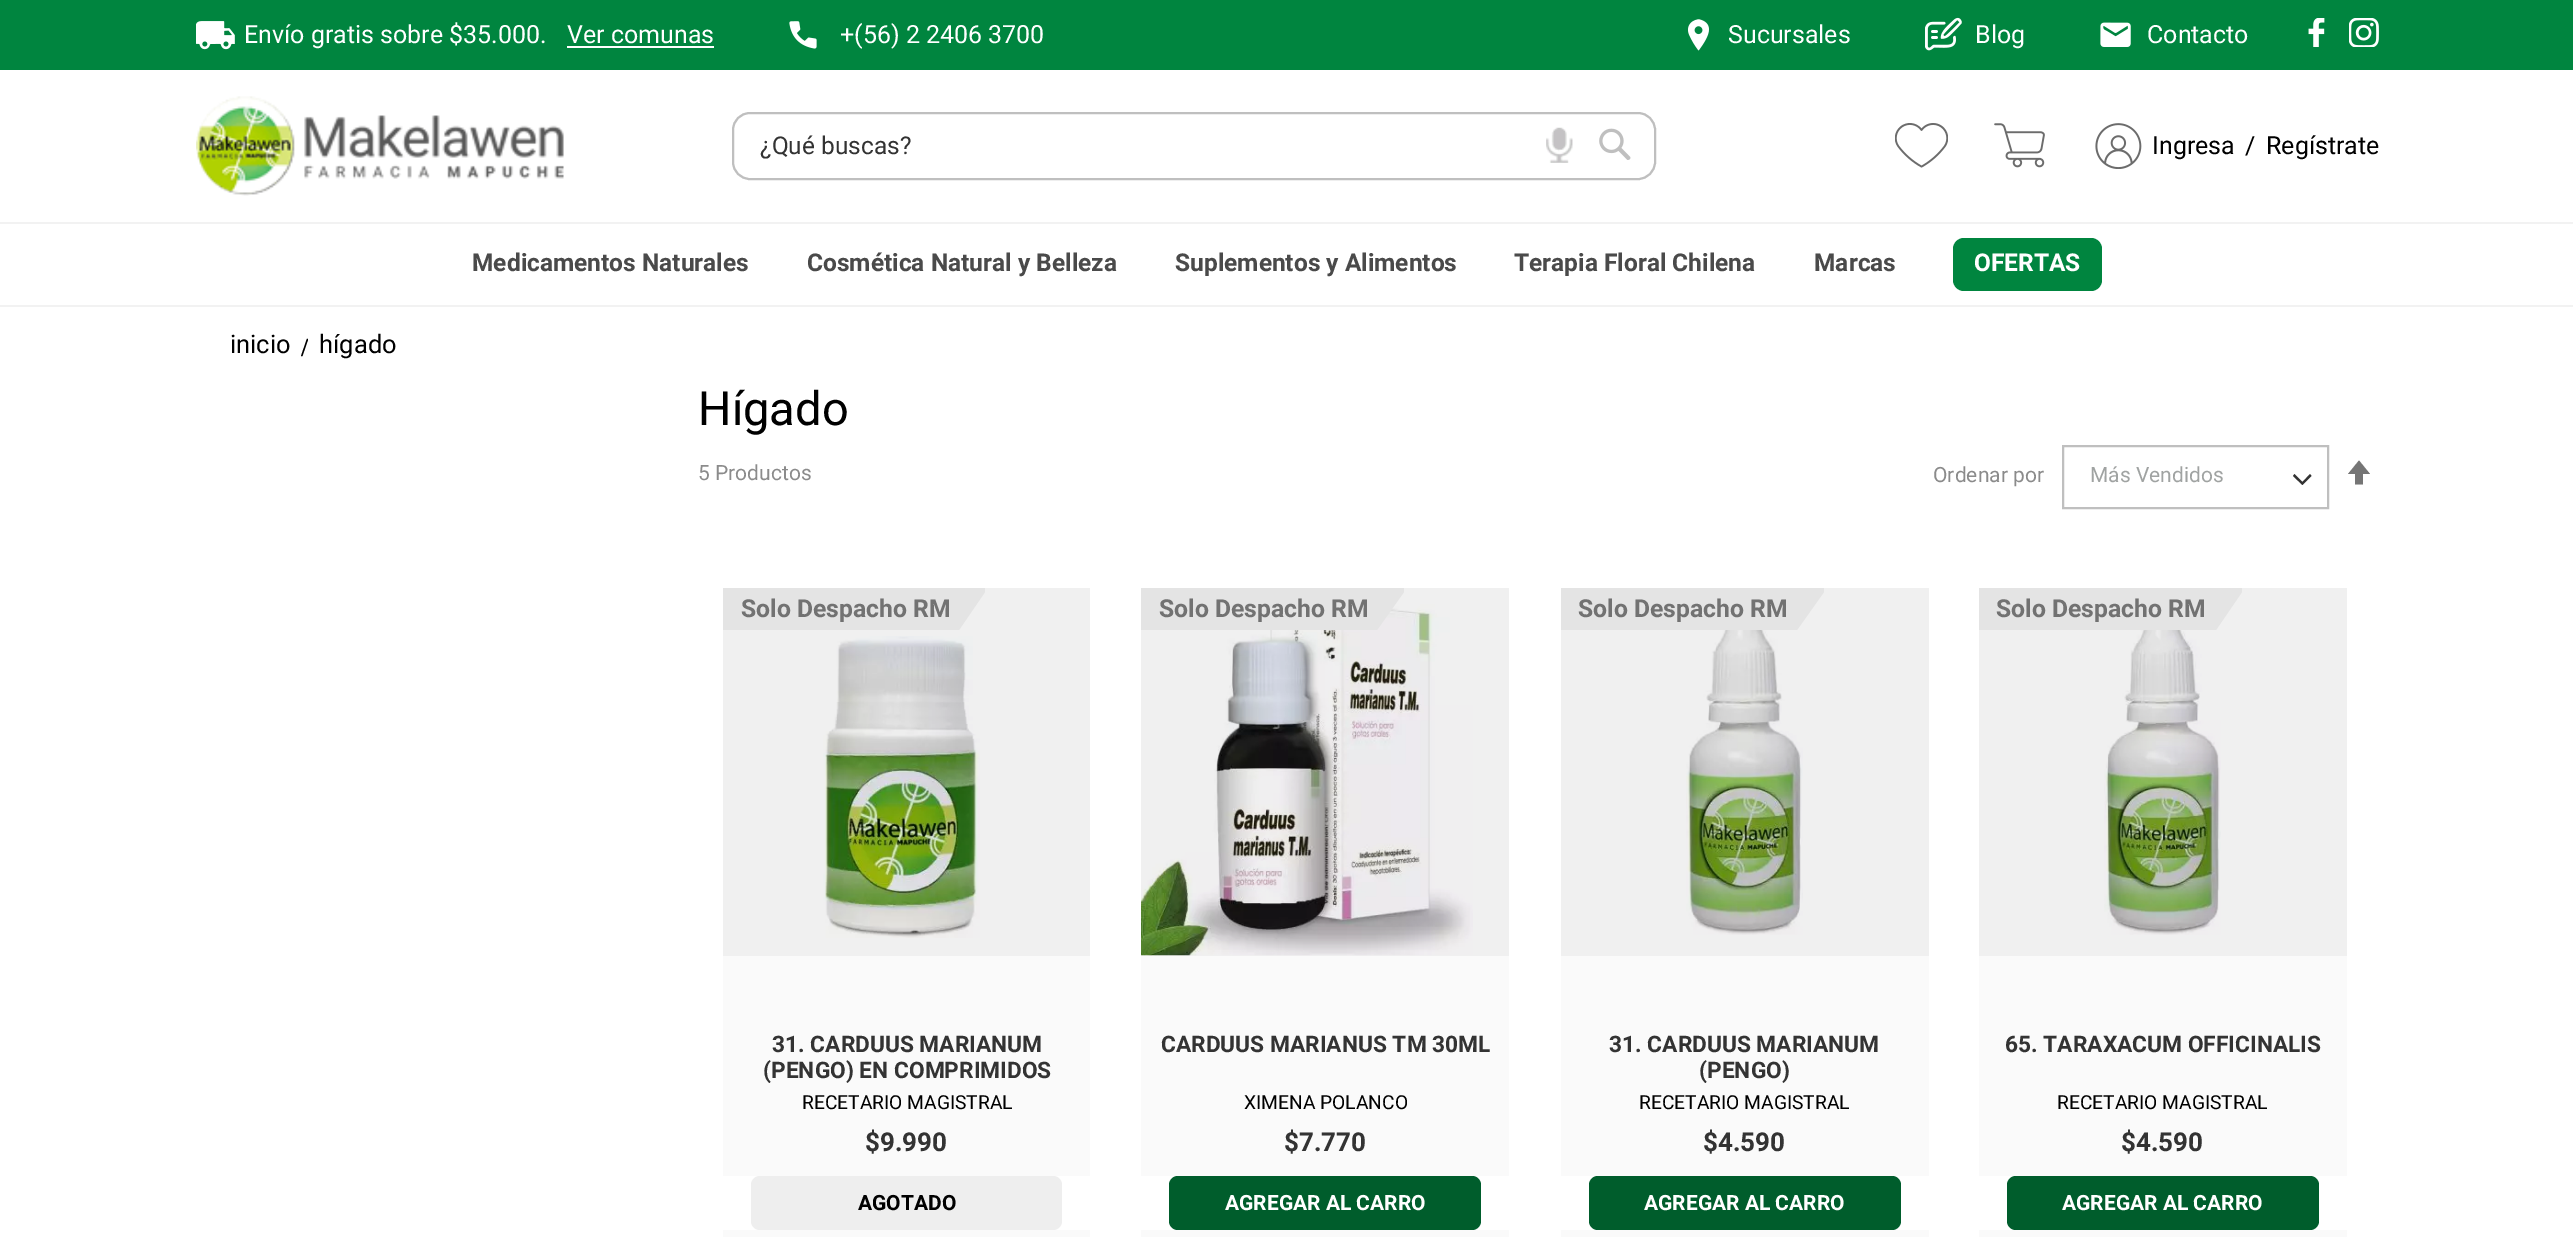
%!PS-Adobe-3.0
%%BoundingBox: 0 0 2573 1237
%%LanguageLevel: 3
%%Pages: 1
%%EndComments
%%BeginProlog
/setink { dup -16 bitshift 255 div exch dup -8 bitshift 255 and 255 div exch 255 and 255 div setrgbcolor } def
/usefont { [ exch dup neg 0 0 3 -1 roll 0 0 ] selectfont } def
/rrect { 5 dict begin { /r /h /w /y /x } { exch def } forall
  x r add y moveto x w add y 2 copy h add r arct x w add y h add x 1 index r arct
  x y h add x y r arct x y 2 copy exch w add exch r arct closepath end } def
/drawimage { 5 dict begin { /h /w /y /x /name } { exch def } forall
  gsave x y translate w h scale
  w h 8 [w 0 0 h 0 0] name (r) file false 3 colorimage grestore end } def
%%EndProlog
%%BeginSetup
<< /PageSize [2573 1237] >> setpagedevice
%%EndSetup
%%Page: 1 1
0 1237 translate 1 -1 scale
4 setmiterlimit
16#FFFFFF setink
0 0 2573 1237 rectfill
[
    [1979 588 368 368 16#F0F0F0]
    [1561 588 368 368 16#F0F0F0]
    [1141 588 368 368 16#F0F0F0]
    [723 588 367 368 16#F0F0F0]
    [0 0 2573 70 16#00853F]
] { aload pop setink rectfill } forall
(img1.raw) 196 21 39 29 drawimage
/Roboto-Regular 25 usefont
16#FFFFFF setink
244 43 moveto (Envío gratis sobre $35.000.) show
567 43 moveto (Ver comunas) show
567 46 147 2 rectfill
(img2.raw) 789 21 28 28 drawimage
840 43 moveto (+\(56\) 2 2406 3700) show
(img3.raw) 1688 19 21 32 drawimage
1728 43 moveto (Sucursales) show
(img4.raw) 1925 17 37 34 drawimage
1975 43 moveto (Blog) show
(img5.raw) 2100 22 31 25 drawimage
2147 43 moveto (Contacto) show
(img6.raw) 2308 18 17 29 drawimage
(img7.raw) 2349 18 30 29 drawimage
(img8.raw) 196 96 368 100 drawimage
16#BFBFBF setink
2 setlinewidth
733 113 922 66 17 rrect stroke
/Roboto-Regular 24.5 usefont
16#333333 setink
760 154 moveto (¿Qué buscas?) show
(img9.raw) 1546 127 27 36 drawimage
(img10.raw) 1599 128 32 32 drawimage
(img11.raw) 1895 123 53 45 drawimage
(img12.raw) 1994 123 51 45 drawimage
(img13.raw) 2095 123 47 46 drawimage
/Roboto-Regular 25 usefont
16#000000 setink
[
    [(Ingresa) 2152 154]
    [(/) 2245 154]
    [(Regístrate) 2266 154]
] { aload pop moveto show } forall
16#F2F2F2 setink
0 222 2573 2 rectfill
0 305 2573 2 rectfill
/Roboto-Bold 24.5 usefont
16#4A4A4A setink
[
    [(Medicamentos Naturales) 472 271]
    [(Cosmética Natural y Belleza) 807 271]
    [(Suplementos y Alimentos) 1175 271]
    [(Terapia Floral Chilena) 1514 271]
    [(Marcas) 1814 271]
] { aload pop moveto show } forall
16#00853F setink
1953 238 149 53 11 rrect fill
16#FFFFFF setink
1974 271 moveto (OFERTAS) show
/Roboto-Regular 25.5 usefont
16#000000 setink
230 353 moveto (inicio) show
gsave
301 333 7 26 rectclip
/LiberationSerif-Bold 26 usefont
301 356 moveto (/) show
grestore
319 353 moveto (hígado) show
/Roboto-Regular 47 usefont
698 425 moveto (Hígado) show
/Roboto-Regular 21 usefont
16#8B8B8B setink
698 480 moveto (5 Productos) show
1933 482 moveto (Ordenar por) show
16#333333 setink
2302.5 485 moveto 2311.5 476 lineto 2310 474 lineto 2302.5 482 lineto 2294.5 474 lineto 2293 476 lineto closepath eofill
16#BFBFBF setink
2063 446 265 62 rectstroke
16#A0A3A2 setink
2090 482 moveto (Más Vendidos) show
16#757575 setink
2359 460.5 moveto 2348 474 lineto 2355 474 lineto 2355 484.5 lineto 2363 484.5 lineto 2363 474 lineto 2370 474 lineto closepath fill
16#FAFAFA setink
723 956 367 281 rectfill
16#E4E4E4 setink
723 588 236 42 rectfill
/Roboto-Bold 24.75 usefont
16#727272 setink
741 617 moveto (Solo Despacho RM) show
16#E4E4E4 setink
959 630 moveto 959 588 lineto 985 588 lineto 985 592 lineto closepath fill
/Roboto-Bold 22.75 usefont
16#333333 setink
772 1052 moveto (31. CARDUUS MARIANUM) show
763 1078 moveto (\(PENGO\) EN COMPRIMIDOS) show
/Roboto-Regular 19.25 usefont
16#000000 setink
802 1109 moveto (RECETARIO MAGISTRAL) show
/Roboto-Bold 26 usefont
16#333333 setink
865 1151 moveto ($9.990) show
16#FFFFFF setink
723 1176 367 54 rectfill
16#EEEEEE setink
751 1176 311 54 9 rrect fill
/Roboto-Bold 21 usefont
16#000000 setink
858 1210 moveto (AGOTADO) show
(img14.raw) 823 636 157 302 drawimage
16#FAFAFA setink
1141 956 368 281 rectfill
(img15.raw) 1141 604 332 352 drawimage
16#E4E4E4 setink
1141 588 236 42 rectfill
/Roboto-Bold 24.75 usefont
16#727272 setink
1159 617 moveto (Solo Despacho RM) show
16#E4E4E4 setink
1377 630 moveto 1377 588 lineto 1404 588 lineto 1404 592 lineto closepath fill
/Roboto-Bold 22.75 usefont
16#333333 setink
1161 1052 moveto (CARDUUS MARIANUS TM 30ML) show
/Roboto-Regular 19.25 usefont
16#000000 setink
1244 1109 moveto (XIMENA POLANCO) show
/Roboto-Bold 26 usefont
16#333333 setink
1284 1151 moveto ($7.770) show
16#FFFFFF setink
1141 1176 368 54 rectfill
16#005D2C setink
1169 1176 312 54 9 rrect fill
/Roboto-Bold 21 usefont
16#FFFFFF setink
1225 1210 moveto (AGREGAR AL CARRO) show
16#FAFAFA setink
1561 956 368 281 rectfill
(img16.raw) 1686 621 117 314 drawimage
16#E4E4E4 setink
1561 588 236 42 rectfill
/Roboto-Bold 24.75 usefont
16#727272 setink
1578 617 moveto (Solo Despacho RM) show
16#E4E4E4 setink
1797 630 moveto 1797 588 lineto 1824 588 lineto 1824 592 lineto closepath fill
/Roboto-Bold 22.75 usefont
16#333333 setink
1609 1052 moveto (31. CARDUUS MARIANUM) show
1699 1078 moveto (\(PENGO\)) show
/Roboto-Regular 19.25 usefont
16#000000 setink
1639 1109 moveto (RECETARIO MAGISTRAL) show
/Roboto-Bold 26 usefont
16#333333 setink
1703 1151 moveto ($4.590) show
16#FFFFFF setink
1561 1176 368 54 rectfill
16#005D2C setink
1589 1176 312 54 9 rrect fill
/Roboto-Bold 21 usefont
16#FFFFFF setink
1644 1210 moveto (AGREGAR AL CARRO) show
16#FAFAFA setink
1979 956 368 281 rectfill
(img17.raw) 2104 622 117 313 drawimage
16#E4E4E4 setink
1979 588 237 42 rectfill
/Roboto-Bold 24.75 usefont
16#727272 setink
1996 617 moveto (Solo Despacho RM) show
16#E4E4E4 setink
2216 630 moveto 2216 588 lineto 2242 588 lineto 2242 592 lineto closepath fill
/Roboto-Bold 22.75 usefont
16#333333 setink
2005 1052 moveto (65. TARAXACUM OFFICINALIS) show
/Roboto-Regular 19.25 usefont
16#000000 setink
2057 1109 moveto (RECETARIO MAGISTRAL) show
/Roboto-Bold 26 usefont
16#333333 setink
2121 1151 moveto ($4.590) show
16#FFFFFF setink
1979 1176 368 54 rectfill
16#005D2C setink
2007 1176 312 54 9 rrect fill
/Roboto-Bold 21 usefont
16#FFFFFF setink
2062 1210 moveto (AGREGAR AL CARRO) show
showpage
%%EOF
